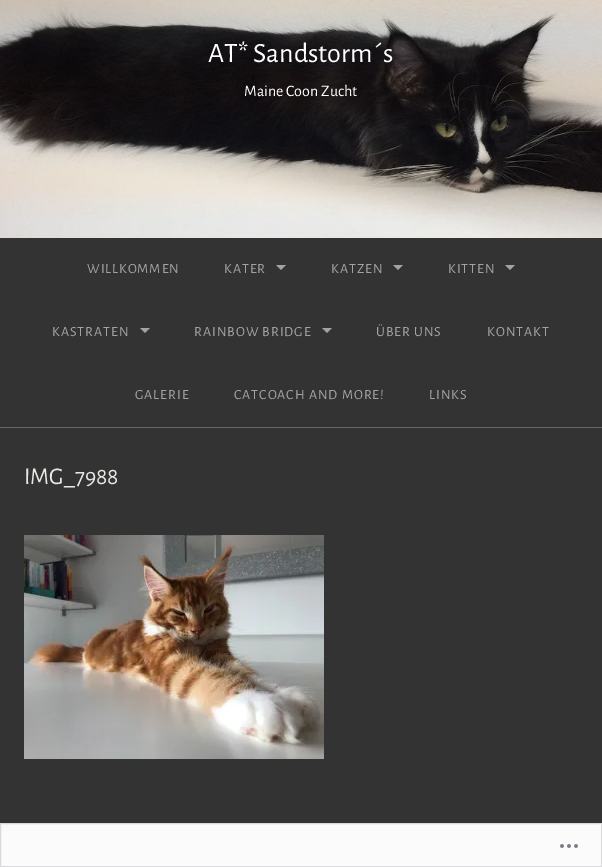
%!PS-Adobe-3.0
%%BoundingBox: 0 0 602 867
%%LanguageLevel: 3
%%Pages: 1
%%EndComments
%%BeginProlog
/setink { dup -16 bitshift 255 div exch dup -8 bitshift 255 and 255 div exch 255 and 255 div setrgbcolor } def
/usefont { [ exch dup neg 0 0 3 -1 roll 0 0 ] selectfont } def
/drawimage { 5 dict begin { /h /w /y /x /name } { exch def } forall
  gsave x y translate w h scale
  w h 8 [w 0 0 h 0 0] name (r) file false 3 colorimage grestore end } def
%%EndProlog
%%BeginSetup
<< /PageSize [602 867] >> setpagedevice
%%EndSetup
%%Page: 1 1
0 867 translate 1 -1 scale
4 setmiterlimit
16#333333 setink
0 0 602 867 rectfill
(img1.raw) 0 0 602 238 drawimage
/AlegreyaSans-Regular 28 usefont
16#FFFFFF setink
208 62 moveto (AT* Sandstorm´s) show
/AlegreyaSans-Regular 16 usefont
244 96 moveto (Maine Coon Zucht) show
16#666666 setink
0 427 602 1 rectfill
/AlegreyaSans-Regular 14 usefont
16#A3A3A3 setink
87 273 moveto 1 0 (WILLKOMMEN) ashow
224 273 moveto 1 0 (KATER) ashow
276 265 moveto 286 265 lineto 281 270 lineto closepath fill
331 273 moveto 1 0 (KATZEN) ashow
393 265 moveto 403 265 lineto 398 270 lineto closepath fill
448 273 moveto 1 0 (KITTEN) ashow
505 265 moveto 515 265 lineto 510 270 lineto closepath fill
52 336 moveto 1 0 (KASTRATEN) ashow
140 328 moveto 150 328 lineto 145 333 lineto closepath fill
194 336 moveto 1 0 (RAINBOW BRIDGE) ashow
322 328 moveto 332 328 lineto 327 333 lineto closepath fill
376 336 moveto 1 0 (ÜBER UNS) ashow
487 336 moveto 1 0 (KONTAKT) ashow
135 399 moveto 1 0 (GALERIE) ashow
234 399 moveto 1 0 (CATCOACH AND MORE!) ashow
429 399 moveto 1 0 (LINKS) ashow
/AlegreyaSans-Regular 24 usefont
16#E7E7E3 setink
24 484 moveto (IMG_7988) show
(img2.raw) 24 535 300 224 drawimage
16#FBFBFB setink
0.5 823.5 moveto 601.5 823.5 lineto 601.5 866.5 lineto 0.5 866.5 lineto closepath gsave fill grestore
16#D9D9DB setink
stroke
(img3.raw) 560 844 18 4 drawimage
showpage
%%EOF
